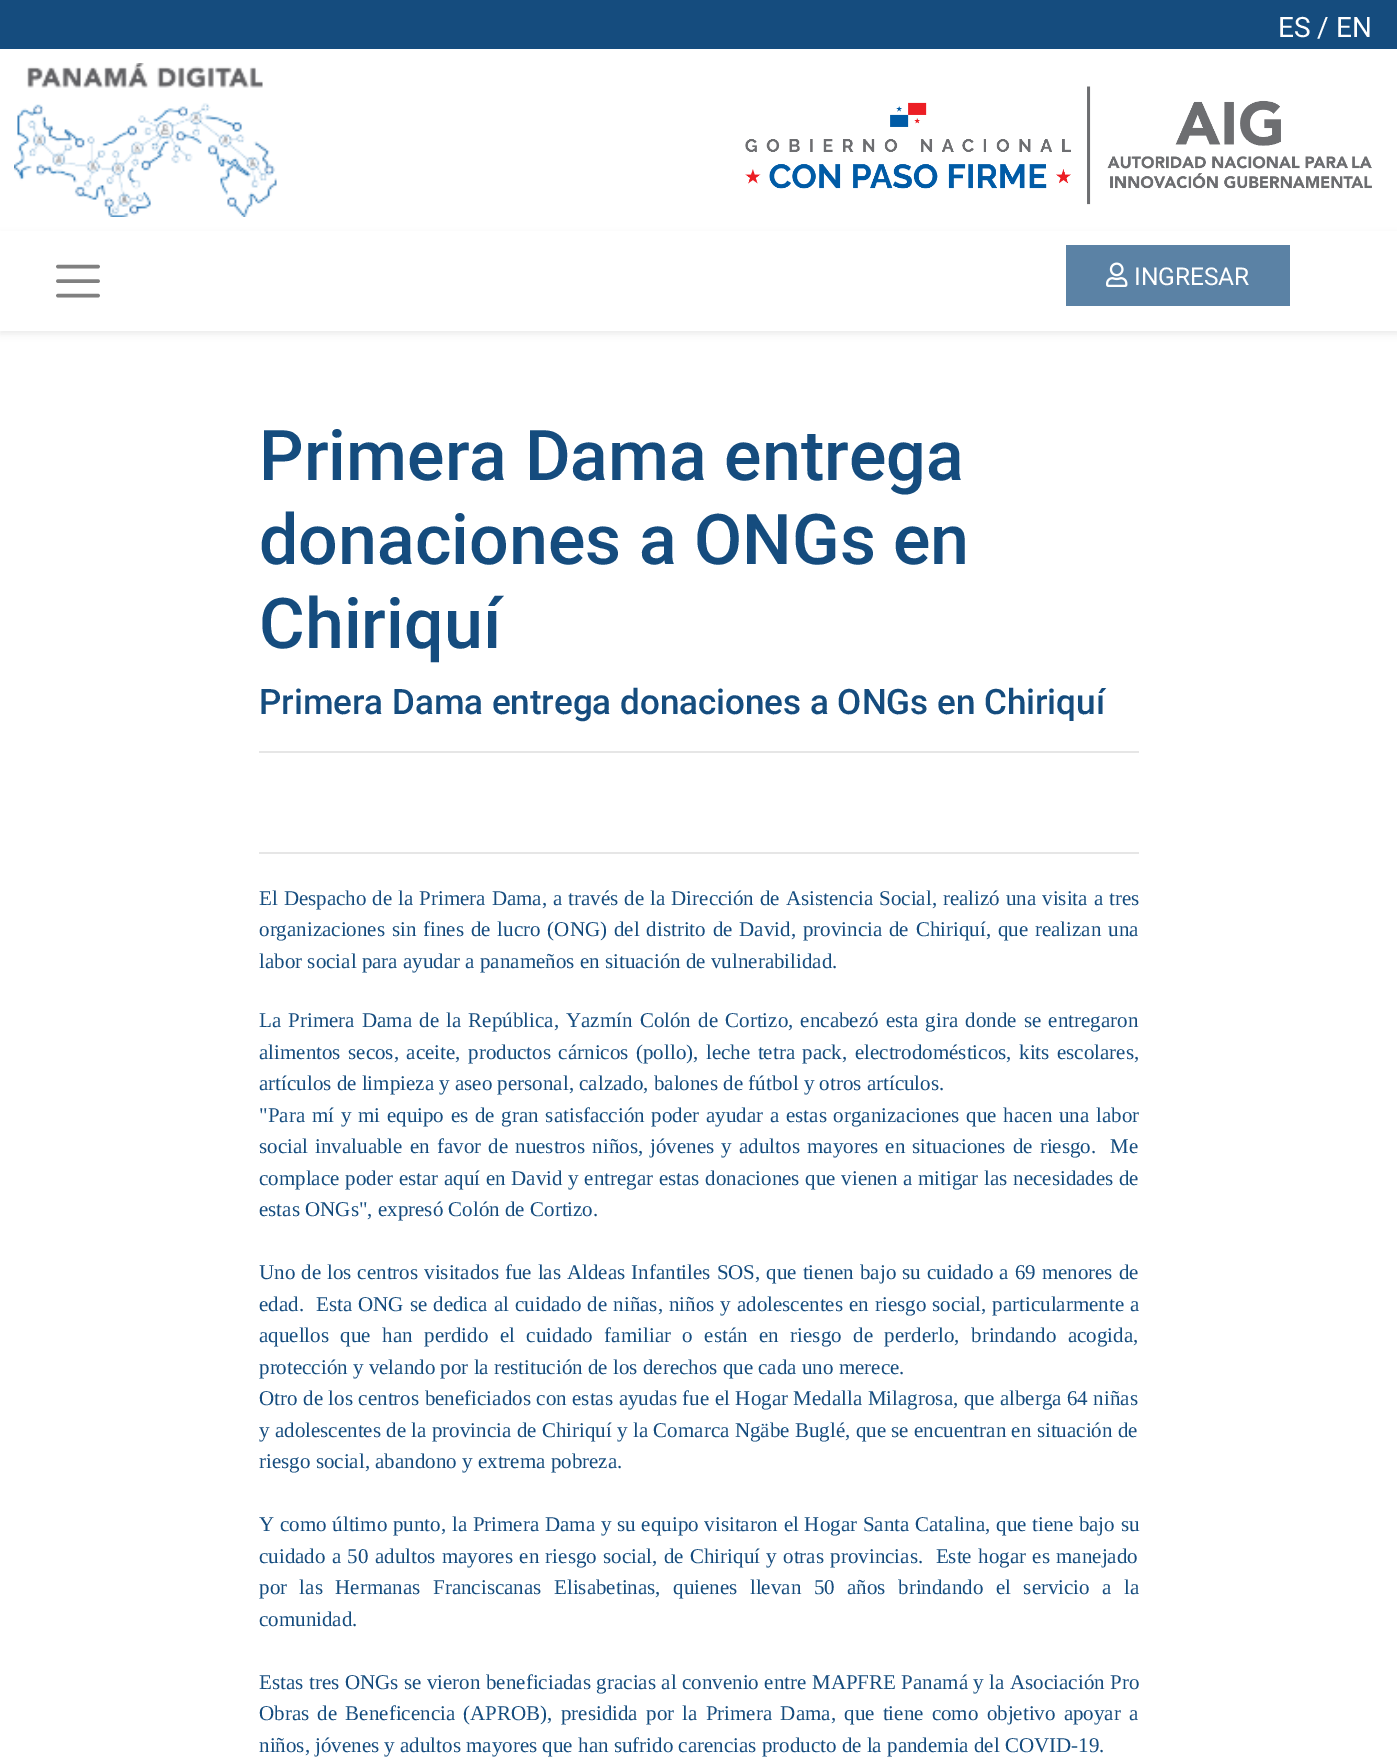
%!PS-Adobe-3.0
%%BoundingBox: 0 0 1397 1762
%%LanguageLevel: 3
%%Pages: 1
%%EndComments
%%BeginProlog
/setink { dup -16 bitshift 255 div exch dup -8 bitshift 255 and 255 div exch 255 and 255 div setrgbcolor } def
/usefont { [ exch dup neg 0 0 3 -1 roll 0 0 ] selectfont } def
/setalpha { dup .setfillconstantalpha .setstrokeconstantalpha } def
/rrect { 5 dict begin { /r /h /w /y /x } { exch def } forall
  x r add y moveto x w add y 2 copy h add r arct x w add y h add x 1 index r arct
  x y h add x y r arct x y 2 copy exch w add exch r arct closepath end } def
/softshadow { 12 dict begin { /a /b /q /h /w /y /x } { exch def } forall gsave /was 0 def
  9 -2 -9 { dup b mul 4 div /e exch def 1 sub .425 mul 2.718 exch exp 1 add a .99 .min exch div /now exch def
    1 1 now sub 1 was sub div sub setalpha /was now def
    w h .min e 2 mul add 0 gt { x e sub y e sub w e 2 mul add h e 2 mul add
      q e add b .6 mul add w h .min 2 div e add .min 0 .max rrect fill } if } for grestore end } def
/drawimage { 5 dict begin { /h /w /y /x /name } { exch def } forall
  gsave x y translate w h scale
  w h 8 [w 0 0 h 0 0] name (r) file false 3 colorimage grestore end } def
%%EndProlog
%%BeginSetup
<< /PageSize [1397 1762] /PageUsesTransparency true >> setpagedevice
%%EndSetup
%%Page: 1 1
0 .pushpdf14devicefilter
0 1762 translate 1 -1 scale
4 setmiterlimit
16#FFFFFF setink
0 0 1397 1762 rectfill
16#154C7E setink
0 0 1397 49 rectfill
/Roboto-Regular 28 usefont
16#FFFFFF setink
1278 37 moveto (ES / EN) show
(img1.raw) 14 63 263 154 drawimage
(img2.raw) 745 86 627 119 drawimage
16#000000 setink
0 235 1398 99 0 3.5 0.07 softshadow
16#FFFFFF setink
0 231 1397 100 rectfill
16#808080 setink
3.6 setlinewidth
1 setlinecap
58 266.5 moveto 98 266.5 lineto 58 281 moveto 98 281 lineto 58 295.5 moveto 98 295.5 lineto stroke
16#5B82A5 setink
1066 245 224 61 rectfill
(img3.raw) 1106 262 22 25 drawimage
/Roboto-Regular 24.5 usefont
16#FFFFFF setink
1134 285 moveto (INGRESAR) show
/Roboto-Medium 70 usefont
16#154C7E setink
[
    [(Primera Dama entrega) 259 480]
    [(donaciones a ONGs en) 259 564]
    [(Chiriquí) 259 648]
] { aload pop moveto show } forall
/Roboto-Medium 35 usefont
259 714 moveto (Primera Dama entrega donaciones a ONGs en Chiriquí) show
16#E6E6E6 setink
259 751 880 2 rectfill
259 852 880 2 rectfill
/LiberationSerif-Regular 21 usefont
16#154C7E setink
259 905 moveto 0.7 0 32 (El Despacho de la Primera Dama, a través de la Dirección de Asistencia Social, realizó una visita a tres) widthshow
259 936 moveto 1.6 0 32 (organizaciones sin fines de lucro \(ONG\) del distrito de David, provincia de Chiriquí, que realizan una) widthshow
259 968 moveto (labor social para ayudar a panameños en situación de vulnerabilidad.) show
259 1027 moveto 1.9 0 32 (La Primera Dama de la República, Yazmín Colón de Cortizo, encabezó esta gira donde se entregaron) widthshow
259 1059 moveto 2.25 0 32 (alimentos secos, aceite, productos cárnicos \(pollo\), leche tetra pack, electrodomésticos, kits escolares,) widthshow
259 1090 moveto (artículos de limpieza y aseo personal, calzado, balones de fútbol y otros artículos.) show
259 1122 moveto 1.5 0 32 ("Para mí y mi equipo es de gran satisfacción poder ayudar a estas organizaciones que hacen una labor) widthshow
259 1153 moveto 1.9 0 32 (social invaluable en favor de nuestros niños, jóvenes y adultos mayores en situaciones de riesgo.  Me) widthshow
259 1185 moveto 0.4 0 32 (complace poder estar aquí en David y entregar estas donaciones que vienen a mitigar las necesidades de) widthshow
259 1216 moveto (estas ONGs", expresó Colón de Cortizo.) show
259 1279 moveto 0.75 0 32 (Uno de los centros visitados fue las Aldeas Infantiles SOS, que tienen bajo su cuidado a 69 menores de) widthshow
259 1311 moveto 0.75 0 32 (edad.  Esta ONG se dedica al cuidado de niñas, niños y adolescentes en riesgo social, particularmente a) widthshow
259 1342 moveto 6.25 0 32 (aquellos que han perdido el cuidado familiar o están en riesgo de perderlo, brindando acogida,) widthshow
259 1374 moveto (protección y velando por la restitución de los derechos que cada uno merece.) show
259 1405 moveto 0.3 0 32 (Otro de los centros beneficiados con estas ayudas fue el Hogar Medalla Milagrosa, que alberga 64 niñas) widthshow
259 1437 moveto 0.1 0 32 (y adolescentes de la provincia de Chiriquí y la Comarca Ngäbe Buglé, que se encuentran en situación de) widthshow
259 1468 moveto (riesgo social, abandono y extrema pobreza.) show
259 1531 moveto 0.5 0 32 (Y como último punto, la Primera Dama y su equipo visitaron el Hogar Santa Catalina, que tiene bajo su) widthshow
259 1563 moveto 1.1 0 32 (cuidado a 50 adultos mayores en riesgo social, de Chiriquí y otras provincias.  Este hogar es manejado) widthshow
259 1594 moveto 7.25 0 32 (por las Hermanas Franciscanas Elisabetinas, quienes llevan 50 años brindando el servicio a la) widthshow
259 1626 moveto (comunidad.) show
259 1689 moveto 0.25 0 32 (Estas tres ONGs se vieron beneficiadas gracias al convenio entre MAPFRE Panamá y la Asociación Pro) widthshow
259 1720 moveto 3 0 32 (Obras de Beneficencia \(APROB\), presidida por la Primera Dama, que tiene como objetivo apoyar a) widthshow
259 1752 moveto (niños, jóvenes y adultos mayores que han sufrido carencias producto de la pandemia del COVID-19.) show
.poppdf14devicefilter showpage
%%EOF
